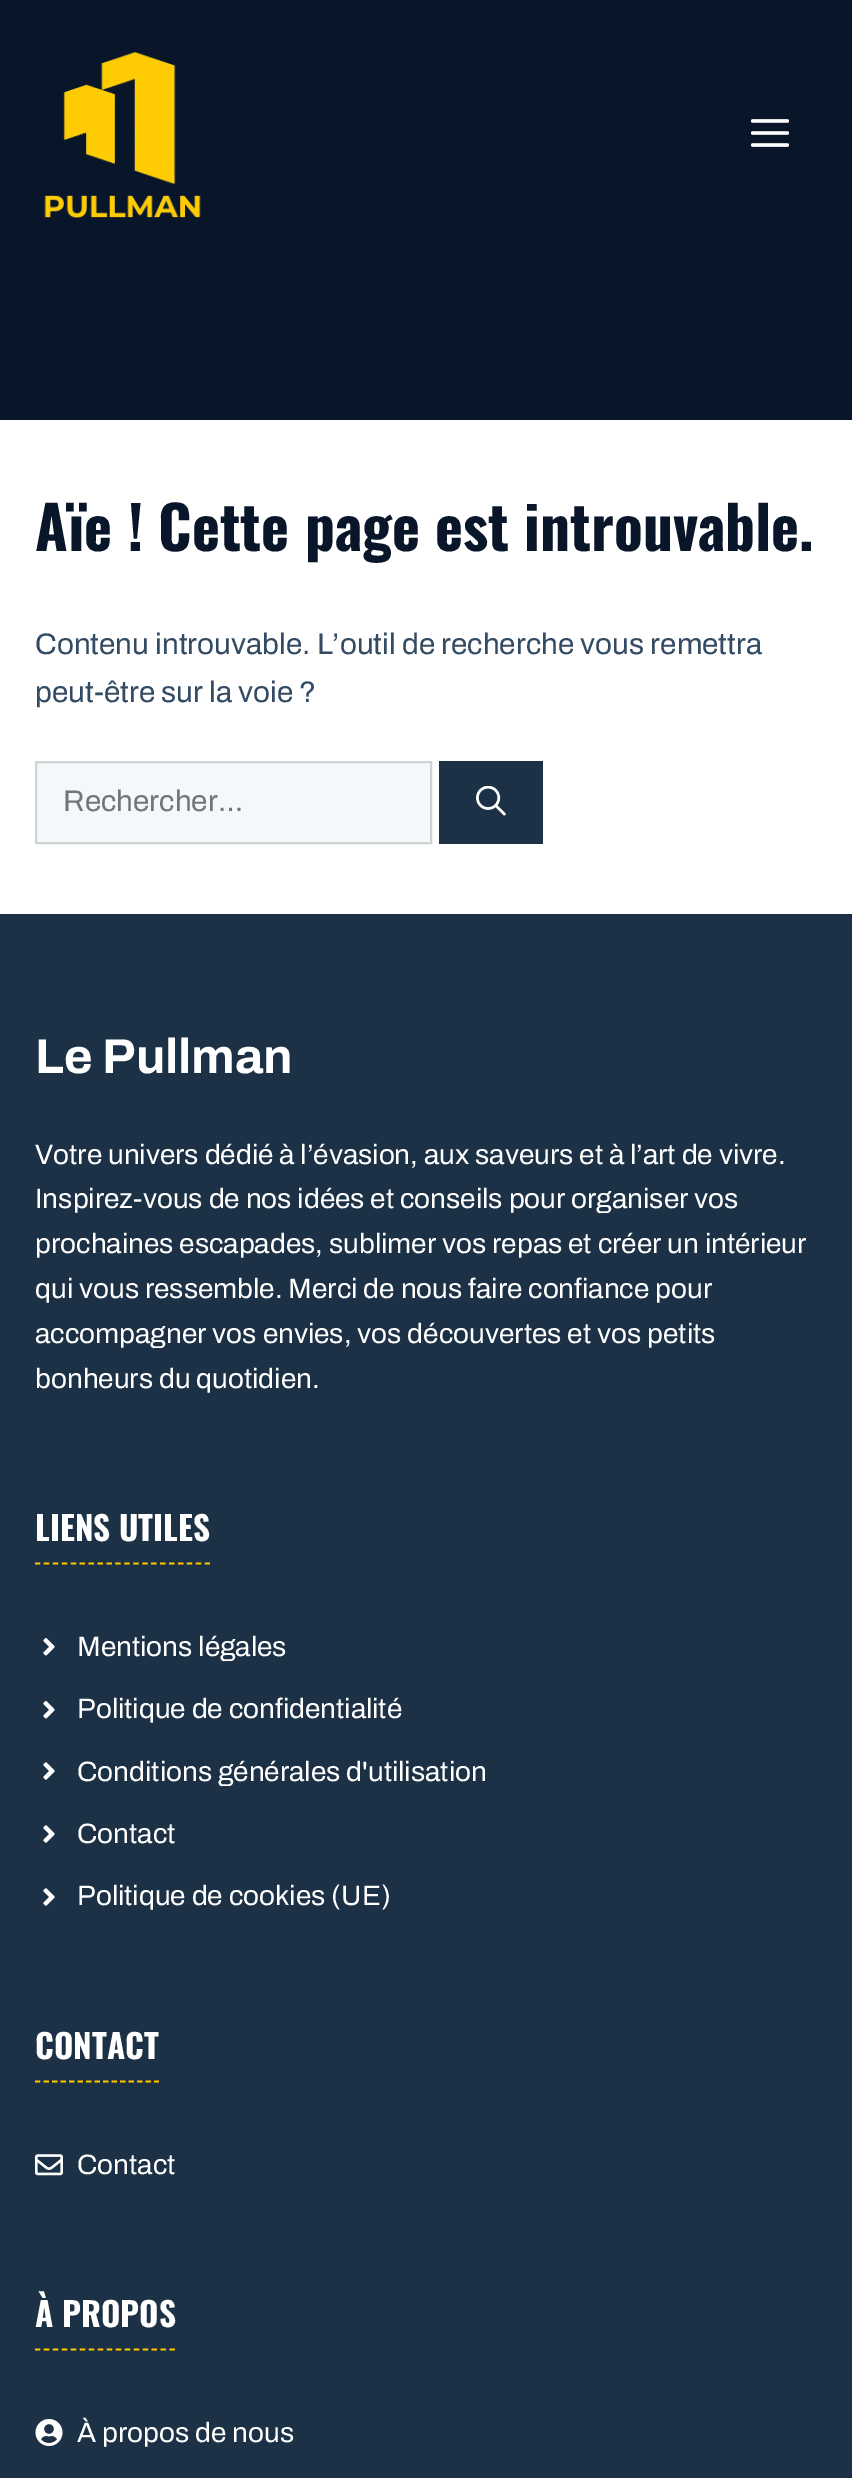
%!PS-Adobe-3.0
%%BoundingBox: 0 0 852 2478
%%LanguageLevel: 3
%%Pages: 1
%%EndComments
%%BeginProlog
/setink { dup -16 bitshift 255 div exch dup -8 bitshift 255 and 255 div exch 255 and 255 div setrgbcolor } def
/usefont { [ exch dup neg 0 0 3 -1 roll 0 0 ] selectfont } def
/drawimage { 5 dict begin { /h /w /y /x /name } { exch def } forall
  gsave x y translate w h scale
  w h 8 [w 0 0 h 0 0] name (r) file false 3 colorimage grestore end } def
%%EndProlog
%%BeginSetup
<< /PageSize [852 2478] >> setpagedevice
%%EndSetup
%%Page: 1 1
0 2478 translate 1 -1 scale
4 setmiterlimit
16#FFFFFF setink
0 0 852 2478 rectfill
16#09162A setink
0 0 852 420 rectfill
(img1.raw) 44 51 157 167 drawimage
(img2.raw) 751 119 38 28 drawimage
/Oswald-Bold 59.5 usefont
35 551 moveto (Aïe ! Cette page est introuvable.) show
/Archivo-Regular 29.75 usefont
16#344B64 setink
35 654 moveto (Contenu introuvable. L’outil de recherche vous remettra) show
35 702 moveto (peut-être sur la voie ?) show
16#F4F8FA setink
36 762 moveto 431 762 lineto 431 843 lineto 36 843 lineto closepath gsave fill grestore
16#CED3D3 setink
2 setlinewidth
stroke
16#757575 setink
63 811 moveto (Rechercher…) show
16#1C3145 setink
439 761 104 83 rectfill
(img3.raw) 476 786 30 30 drawimage
0 914 852 1564 rectfill
/Archivo-Bold 49 usefont
16#FFFFFF setink
35 1073 moveto (Le Pullman) show
/Archivo-Regular 28 usefont
[
    [(Votre univers dédié à l’évasion, aux saveurs et à l’art de vivre.) 35 1164]
    [(Inspirez-vous de nos idées et conseils pour organiser vos) 35 1208]
    [(prochaines escapades, sublimer vos repas et créer un intérieur) 35 1253]
    [(qui vous ressemble. Merci de nous faire confiance pour) 35 1298]
    [(accompagner vos envies, vos découvertes et vos petits) 35 1343]
    [(bonheurs du quotidien.) 35 1388]
] { aload pop moveto show } forall
16#FFC300 setink
1.8 setlinewidth
[5.25 3.69] 0 setdash
35 1563.5 moveto 210 1563.5 lineto stroke
/Oswald-Bold 33.25 usefont
16#FFFFFF setink
35 1541 moveto (LIENS UTILES) show
(img4.raw) 43 1638 12 18 drawimage
/Archivo-Regular 28 usefont
77 1656 moveto (Mentions légales) show
(img4.raw) 43 1701 12 18 drawimage
77 1718 moveto (Politique de confidentialité) show
(img5.raw) 43 1762 12 18 drawimage
77 1781 moveto (Conditions générales d'utilisation) show
(img5.raw) 43 1825 12 18 drawimage
77 1843 moveto (Contact) show
(img5.raw) 43 1888 12 18 drawimage
77 1905 moveto (Politique de cookies \(UE\)) show
16#FFC300 setink
[5.25 3.26] 0 setdash
35 2081.5 moveto 159 2081.5 lineto stroke
/Oswald-Bold 33.25 usefont
16#FFFFFF setink
35 2059 moveto (CONTACT) show
(img6.raw) 35 2154 28 22 drawimage
/Archivo-Regular 28 usefont
77 2174 moveto (Contact) show
16#FFC300 setink
[5.25 3.73] 0 setdash
35 2349.5 moveto 175 2349.5 lineto stroke
/Oswald-Bold 33.25 usefont
16#FFFFFF setink
35 2327 moveto (À PROPOS) show
(img7.raw) 35 2419 28 27 drawimage
/Archivo-Regular 28 usefont
77 2442 moveto (À propos de nous) show
showpage
%%EOF
